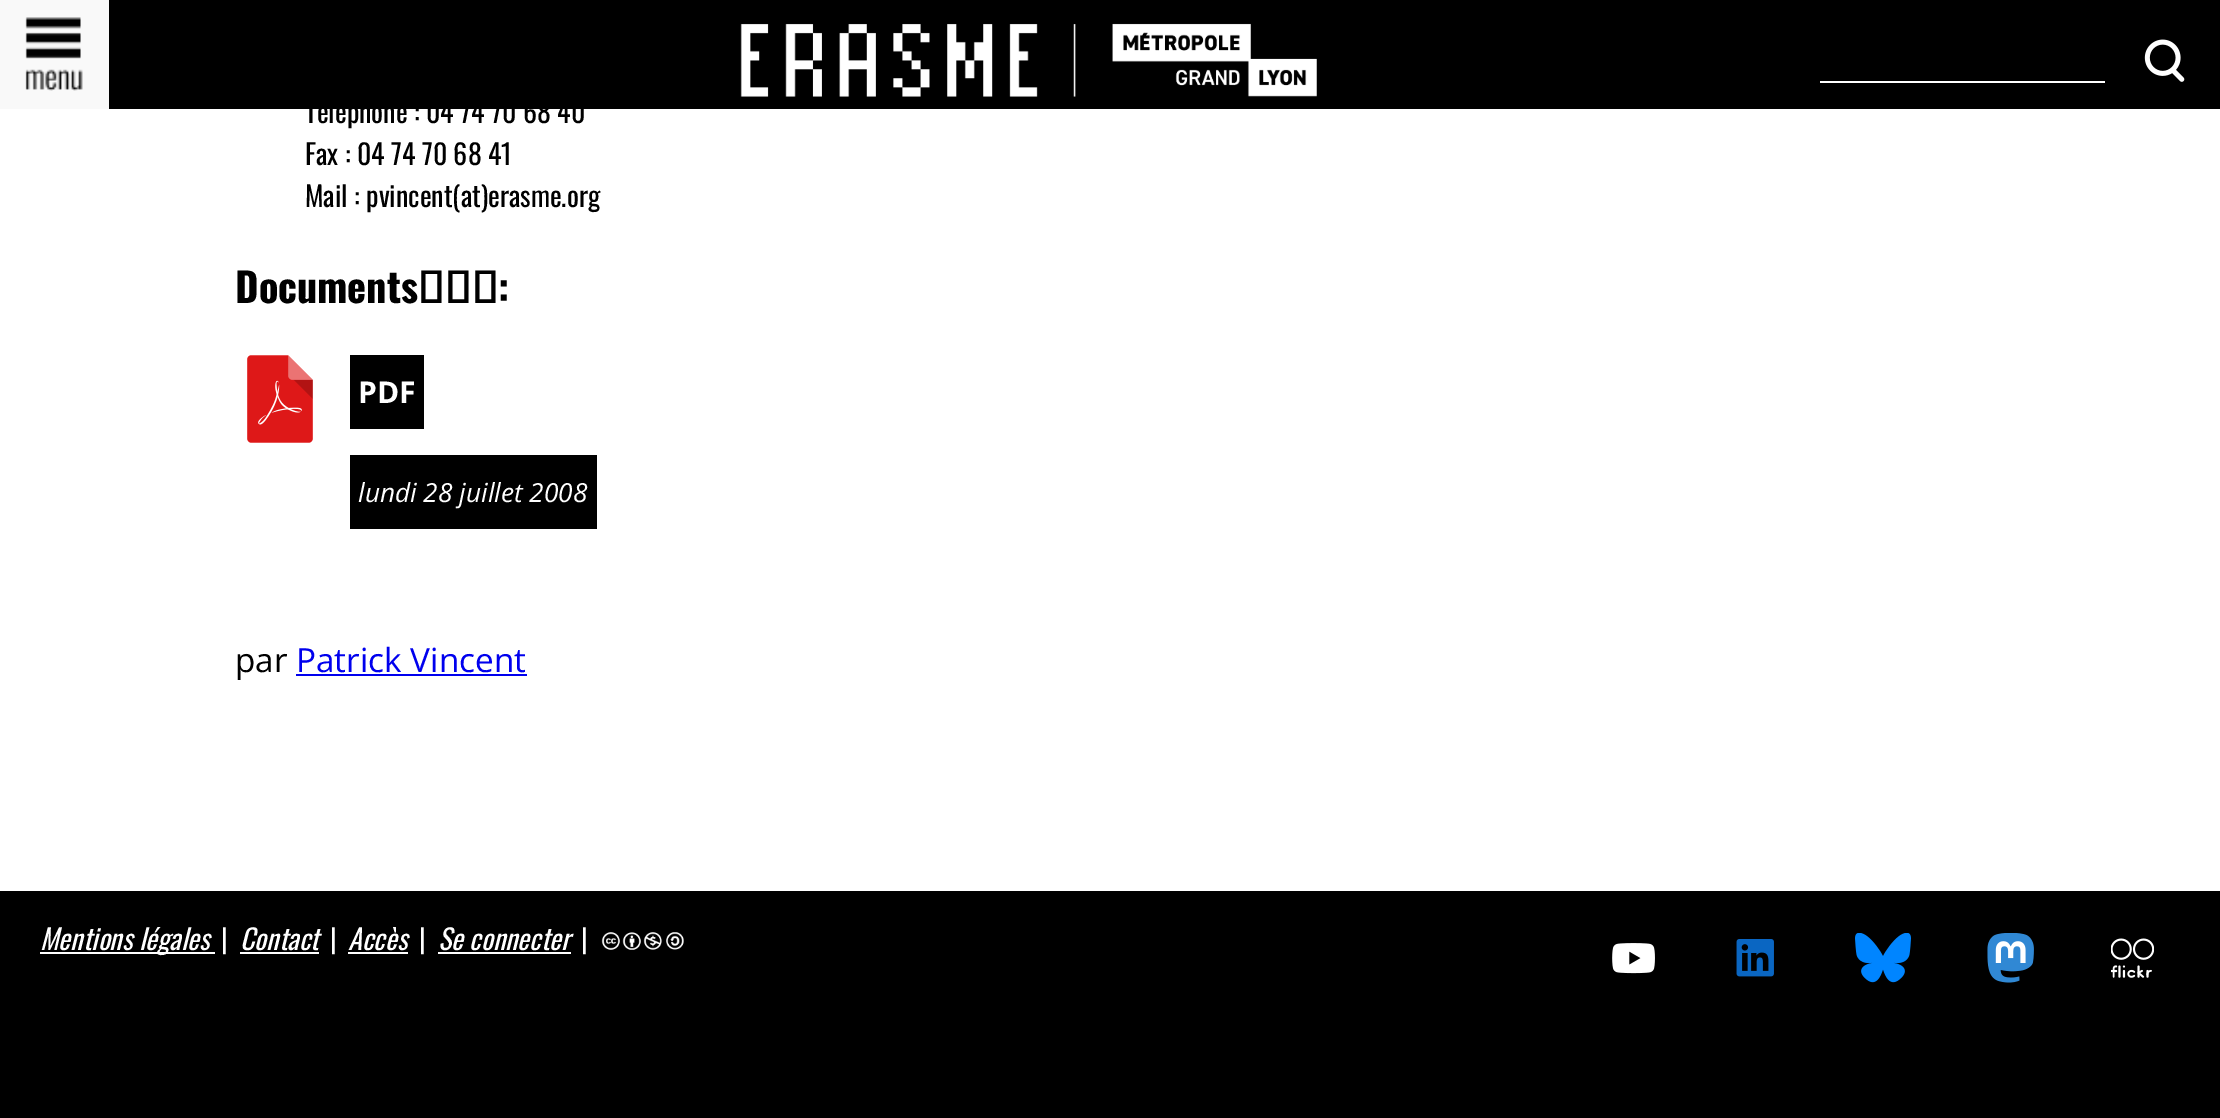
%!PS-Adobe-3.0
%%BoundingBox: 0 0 2220 1118
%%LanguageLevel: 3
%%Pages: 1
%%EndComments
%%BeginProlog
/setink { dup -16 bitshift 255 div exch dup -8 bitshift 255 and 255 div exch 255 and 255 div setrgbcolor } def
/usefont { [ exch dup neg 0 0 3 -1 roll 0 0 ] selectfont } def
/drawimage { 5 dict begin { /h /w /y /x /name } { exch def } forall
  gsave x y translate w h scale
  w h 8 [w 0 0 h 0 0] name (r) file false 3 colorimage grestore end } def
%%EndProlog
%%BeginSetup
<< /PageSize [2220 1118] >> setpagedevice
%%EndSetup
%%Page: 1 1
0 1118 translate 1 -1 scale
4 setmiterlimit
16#FFFFFF setink
0 0 2220 1118 rectfill
16#000000 setink
109 0 2111 109 rectfill
16#F9F9F9 setink
0 0 109 109 rectfill
(img1.raw) 25 17 58 74 drawimage
(img2.raw) 740 23 577 74 drawimage
16#FFFFFF setink
1820 81 285 2 rectfill
(img3.raw) 2144 39 41 43 drawimage
/Oswald-Regular 28 usefont
16#000000 setink
[
    [(Téléphone : 04 74 70 68 40) 305 123]
    [(Fax : 04 74 70 68 41) 305 165]
    [(Mail : pvincent\(at\)erasme.org) 305 207]
] { aload pop moveto show } forall
/Oswald-Bold 40.25 usefont
235 303 moveto (Documents :) show
(img4.raw) 247 355 66 88 drawimage
350 355 74 74 rectfill
/OpenSans-Bold 30 usefont
16#FFFFFF setink
358 403 moveto (PDF) show
16#000000 setink
350 455 247 74 rectfill
/OpenSans-Italic 26.25 usefont
16#FFFFFF setink
358 502 moveto (lundi 28 juillet 2008) show
/OpenSans-Regular 33.25 usefont
16#000000 setink
235 672 moveto (par) show
16#0000EE setink
296 674 231 2 rectfill
296 672 moveto (Patrick Vincent) show
16#000000 setink
0 891 2220 227 rectfill
16#FFFFFF setink
40 952 175 2 rectfill
/Oswald-Italic 28 usefont
40 950 moveto (Mentions légales) show
/Oswald-Regular 28 usefont
221 950 moveto (|) show
/Oswald-Italic 28 usefont
240 950 moveto (Contact) show
240 952 79 2 rectfill
/Oswald-Regular 28 usefont
330 950 moveto (|) show
/Oswald-Italic 28 usefont
348 950 moveto (Accès) show
348 952 60 2 rectfill
/Oswald-Regular 28 usefont
419 950 moveto (|) show
/Oswald-Italic 28 usefont
438 950 moveto (Se connecter) show
438 952 133 2 rectfill
/Oswald-Regular 28 usefont
581 950 moveto (|) show
(img5.raw) 601 932 83 18 drawimage
(img6.raw) 1612 943 43 31 drawimage
(img7.raw) 1736 939 38 38 drawimage
(img8.raw) 1855 933 56 50 drawimage
(img9.raw) 1987 933 47 50 drawimage
(img10.raw) 2111 938 43 40 drawimage
showpage
%%EOF
